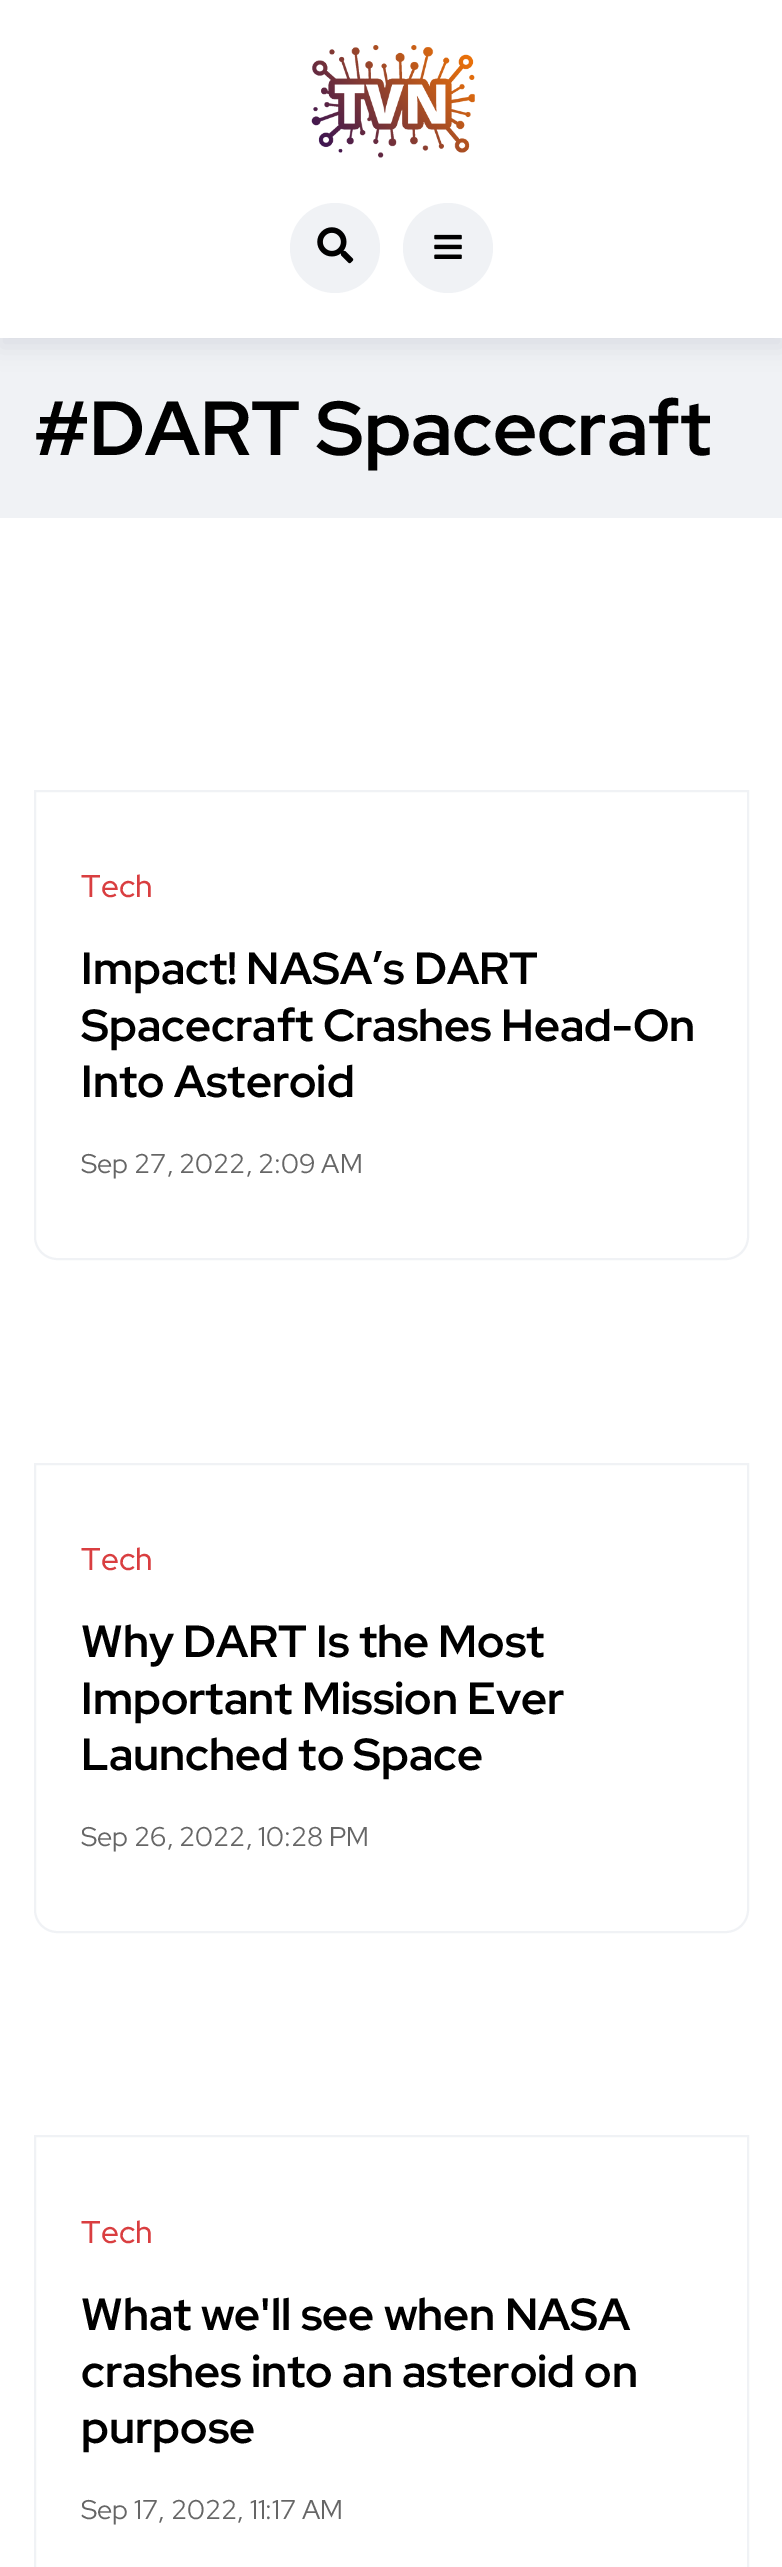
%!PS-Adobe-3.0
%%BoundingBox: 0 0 782 2567
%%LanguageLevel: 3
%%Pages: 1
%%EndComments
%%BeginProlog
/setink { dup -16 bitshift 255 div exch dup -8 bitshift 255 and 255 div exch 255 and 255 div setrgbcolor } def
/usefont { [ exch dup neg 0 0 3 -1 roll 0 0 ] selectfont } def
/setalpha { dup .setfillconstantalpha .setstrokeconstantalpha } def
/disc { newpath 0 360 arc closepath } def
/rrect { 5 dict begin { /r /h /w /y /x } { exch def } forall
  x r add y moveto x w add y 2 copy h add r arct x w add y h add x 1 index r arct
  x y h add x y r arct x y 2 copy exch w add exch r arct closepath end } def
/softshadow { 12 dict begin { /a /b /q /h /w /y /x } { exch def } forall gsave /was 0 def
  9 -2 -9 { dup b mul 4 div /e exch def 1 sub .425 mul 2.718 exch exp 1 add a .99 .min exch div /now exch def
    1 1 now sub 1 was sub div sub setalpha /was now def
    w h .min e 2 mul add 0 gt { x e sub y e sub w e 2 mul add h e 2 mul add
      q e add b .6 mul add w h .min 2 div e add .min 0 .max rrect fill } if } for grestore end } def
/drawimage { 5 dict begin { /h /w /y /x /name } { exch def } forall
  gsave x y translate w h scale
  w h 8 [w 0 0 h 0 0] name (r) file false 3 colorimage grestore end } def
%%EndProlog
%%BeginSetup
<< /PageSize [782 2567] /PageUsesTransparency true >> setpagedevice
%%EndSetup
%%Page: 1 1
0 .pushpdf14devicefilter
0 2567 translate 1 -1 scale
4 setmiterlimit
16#FFFFFF setink
0 0 782 2567 rectfill
16#F0F2F5 setink
0 338 782 180 rectfill
16#252F3F setink
0 9 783 338 0 11 0.1 softshadow
16#FFFFFF setink
0 0 782 338 rectfill
(img1.raw) 311 45 164 113 drawimage
16#F0F2F5 setink
335 248 45 disc fill
(img2.raw) 317 227 37 37 drawimage
448 248 45 disc fill
(img3.raw) 434 234 28 25 drawimage
/RedHatDisplay-Bold 76.5 usefont
16#000000 setink
34 455 moveto (#DART Spacecraft) show
16#F0F2F5 setink
2 setlinewidth
35 791 moveto 748 791 lineto 748 1237 lineto 748 1249 738 1259 726 1259 curveto 57 1259 lineto 45 1259 35 1249 35 1237 curveto closepath stroke
/RedHatDisplay-Medium 31.5 usefont
16#D93E40 setink
81 897 moveto (Tech) show
/RedHatDisplay-Bold 45 usefont
16#000000 setink
[
    [(Impact! NASA’s DART) 81 984]
    [(Spacecraft Crashes Head-On) 81 1041]
    [(Into Asteroid) 81 1097]
] { aload pop moveto show } forall
/RedHatDisplay-Regular 27 usefont
16#666666 setink
81 1173 moveto (Sep 27, 2022, 2:09 AM) show
16#F0F2F5 setink
35 1464 moveto 748 1464 lineto 748 1910 lineto 748 1922 738 1932 726 1932 curveto 57 1932 lineto 45 1932 35 1922 35 1910 curveto closepath stroke
/RedHatDisplay-Medium 31.5 usefont
16#D93E40 setink
81 1570 moveto (Tech) show
/RedHatDisplay-Bold 45 usefont
16#000000 setink
[
    [(Why DART Is the Most) 81 1657]
    [(Important Mission Ever) 81 1714]
    [(Launched to Space) 81 1770]
] { aload pop moveto show } forall
/RedHatDisplay-Regular 27 usefont
16#666666 setink
81 1846 moveto (Sep 26, 2022, 10:28 PM) show
16#F0F2F5 setink
35 2136 713 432 rectstroke
/RedHatDisplay-Medium 31.5 usefont
16#D93E40 setink
81 2243 moveto (Tech) show
/RedHatDisplay-Bold 45 usefont
16#000000 setink
[
    [(What we'll see when NASA) 81 2330]
    [(crashes into an asteroid on) 81 2387]
    [(purpose) 81 2443]
] { aload pop moveto show } forall
/RedHatDisplay-Regular 27 usefont
16#666666 setink
81 2519 moveto (Sep 17, 2022, 11:17 AM) show
.poppdf14devicefilter showpage
%%EOF
